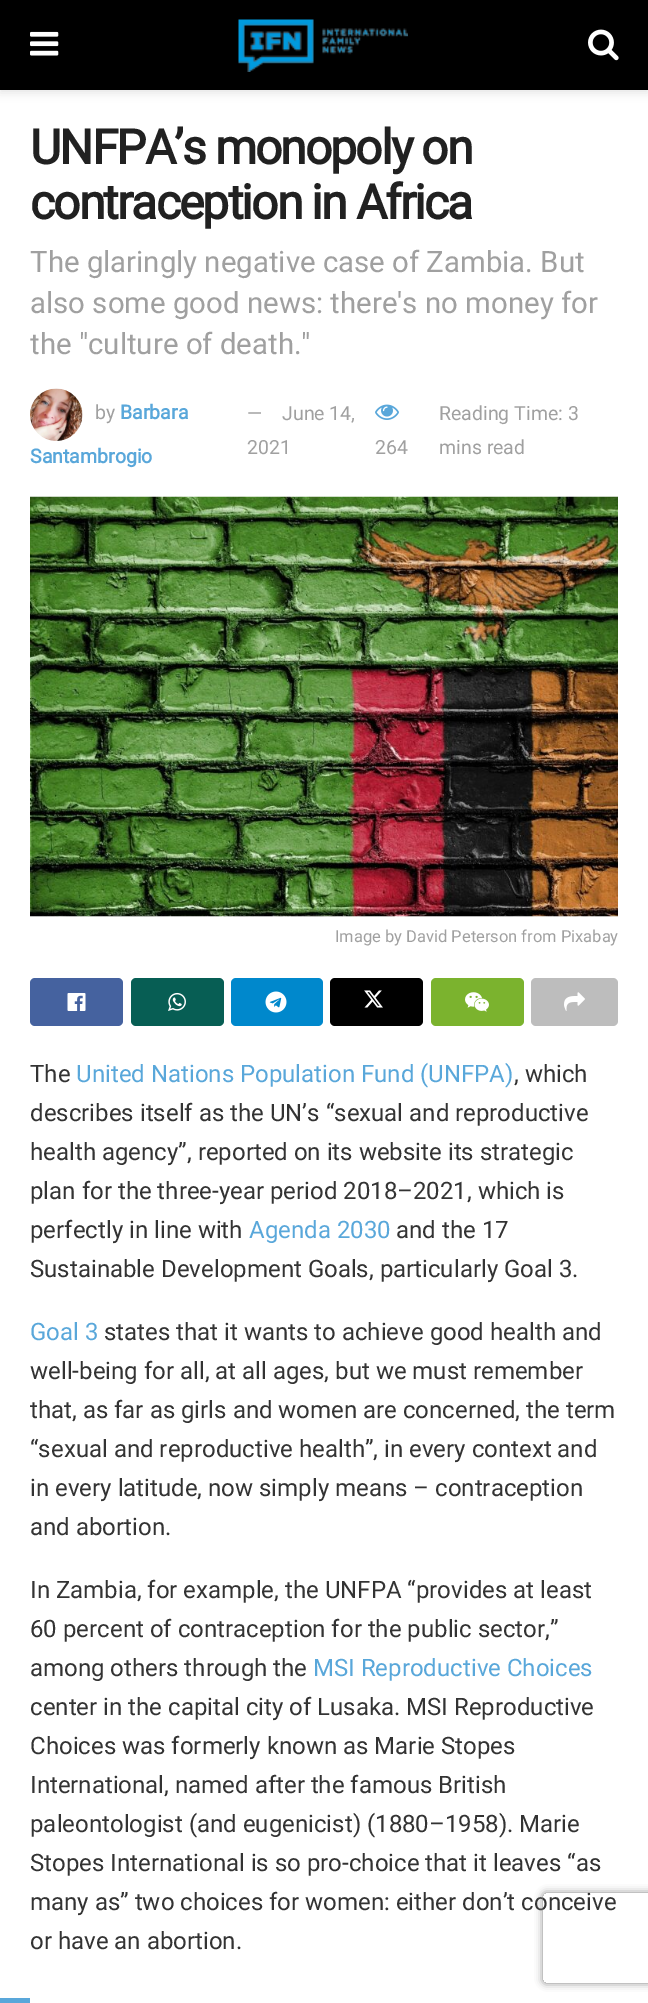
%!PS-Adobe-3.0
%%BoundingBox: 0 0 648 2003
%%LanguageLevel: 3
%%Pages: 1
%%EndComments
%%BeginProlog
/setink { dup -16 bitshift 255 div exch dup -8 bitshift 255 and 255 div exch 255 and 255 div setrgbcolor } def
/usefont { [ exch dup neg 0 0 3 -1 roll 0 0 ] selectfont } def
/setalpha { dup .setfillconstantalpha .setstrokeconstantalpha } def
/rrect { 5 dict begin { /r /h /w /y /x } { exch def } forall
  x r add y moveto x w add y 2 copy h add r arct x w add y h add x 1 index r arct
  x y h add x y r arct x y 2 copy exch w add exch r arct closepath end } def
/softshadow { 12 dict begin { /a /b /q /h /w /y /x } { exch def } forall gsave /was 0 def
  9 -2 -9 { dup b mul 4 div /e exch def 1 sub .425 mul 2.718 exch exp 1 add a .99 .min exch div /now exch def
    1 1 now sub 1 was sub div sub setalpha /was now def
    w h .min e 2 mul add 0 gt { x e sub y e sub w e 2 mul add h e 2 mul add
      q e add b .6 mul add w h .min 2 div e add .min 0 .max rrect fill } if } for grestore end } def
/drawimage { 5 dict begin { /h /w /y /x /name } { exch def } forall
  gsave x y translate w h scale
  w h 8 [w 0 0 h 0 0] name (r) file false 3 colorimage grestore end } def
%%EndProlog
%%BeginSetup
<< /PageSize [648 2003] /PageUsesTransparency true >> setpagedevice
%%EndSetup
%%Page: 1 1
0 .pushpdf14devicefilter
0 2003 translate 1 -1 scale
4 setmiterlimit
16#FFFFFF setink
0 0 648 2003 rectfill
16#000000 setink
0 3 648 90 0 4.5 0.1 softshadow
0 0 648 90 rectfill
(img1.raw) 30 31 29 25 drawimage
(img2.raw) 238 19 170 53 drawimage
(img3.raw) 588 29 31 32 drawimage
/Roboto-Bold 48 usefont
16#212121 setink
30 164 moveto -1.9 0 (UNFPA’s monopoly on) ashow
30 219 moveto -1.9 0 (contraception in Africa) ashow
/Roboto-Regular 29.4 usefont
16#A0A0A0 setink
[
    [(The glaringly negative case of Zambia. But) 30 272]
    [(also some good news: there's no money for) 30 313]
    [(the "culture of death.") 30 354]
] { aload pop moveto show } forall
(img4.raw) 30 388 53 53 drawimage
/Roboto-Regular 19.5 usefont
95 419 moveto (by) show
/Roboto-Bold 19.5 usefont
16#59A7DA setink
120 419 moveto (Barbara) show
30 463 moveto (Santambrogio) show
/Roboto-Regular 19.5 usefont
16#A0A0A0 setink
[
    [(—) 247 420]
    [(June 14,) 282 420]
    [(2021) 247 454]
] { aload pop moveto show } forall
(img5.raw) 375 404 24 16 drawimage
[
    [(264) 375 454]
    [(Reading Time: 3) 439 420]
    [(mins read) 439 454]
] { aload pop moveto show } forall
16#F7F7F7 setink
30 916 588 1 rectfill
(img6.raw) 30 496 588 421 drawimage
/Roboto-Regular 16.5 usefont
16#A0A0A0 setink
335 942 moveto (Image by David Peterson from Pixabay) show
16#45629F setink
30 978 93 48 5 rrect fill
(img7.raw) 67 993 19 18 drawimage
16#075E54 setink
131 978 93 48 5 rrect fill
(img8.raw) 168 992 18 19 drawimage
16#0088CC setink
231 978 92 48 5 rrect fill
(img9.raw) 265 991 22 22 drawimage
16#000000 setink
330 978 93 48 5 rrect fill
(img10.raw) 364 990 19 18 drawimage
16#7BB32E setink
431 978 93 48 5 rrect fill
(img11.raw) 465 992 24 20 drawimage
16#BDBDBD setink
531 978 87 48 5 rrect fill
(img12.raw) 564 992 21 19 drawimage
/Roboto-Regular 24 usefont
16#333333 setink
30 1082 moveto (The) show
16#59A7DA setink
76 1082 moveto (United Nations Population Fund \(UNFPA\)) show
16#333333 setink
[
    [(, which) 514 1082]
    [(describes itself as the UN’s “sexual and reproductive) 30 1121]
    [(health agency”, reported on its website its strategic) 30 1160]
    [(plan for the three-year period 2018–2021, which is) 30 1199]
    [(perfectly in line with) 30 1238]
] { aload pop moveto show } forall
16#59A7DA setink
249 1238 moveto (Agenda 2030) show
16#333333 setink
396 1238 moveto (and the 17) show
30 1277 moveto (Sustainable Development Goals, particularly Goal 3.) show
16#59A7DA setink
30 1340 moveto (Goal 3) show
16#333333 setink
[
    [(states that it wants to achieve good health and) 104 1340]
    [(well-being for all, at all ages, but we must remember) 30 1379]
    [(that, as far as girls and women are concerned, the term) 30 1418]
    [(“sexual and reproductive health”, in every context and) 30 1457]
    [(in every latitude, now simply means – contraception) 30 1496]
    [(and abortion.) 30 1535]
    [(In Zambia, for example, the UNFPA “provides at least) 30 1598]
    [(60 percent of contraception for the public sector,”) 30 1637]
    [(among others through the) 30 1676]
] { aload pop moveto show } forall
16#59A7DA setink
313 1676 moveto (MSI Reproductive Choices) show
16#333333 setink
[
    [(center in the capital city of Lusaka. MSI Reproductive) 30 1715]
    [(Choices was formerly known as Marie Stopes) 30 1754]
    [(International, named after the famous British) 30 1793]
    [(paleontologist \(and eugenicist\) \(1880–1958\). Marie) 30 1832]
    [(Stopes International is so pro-choice that it leaves “as) 30 1871]
    [(many as” two choices for women: either don’t conceive) 30 1910]
    [(or have an abortion.) 30 1949]
] { aload pop moveto show } forall
gsave
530 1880 moveto 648 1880 lineto 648 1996 lineto 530 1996 lineto closepath 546 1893 moveto 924 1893 lineto 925.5 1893 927 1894.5 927 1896 curveto 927 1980 lineto 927 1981.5 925.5 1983 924 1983 curveto 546 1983 lineto 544.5 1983 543 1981.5 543 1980 curveto 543 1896 lineto 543 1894.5 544.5 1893 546 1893 curveto closepath eoclip newpath
16#808080 setink
543 1893 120 90 3 4 1 softshadow
grestore
16#59A7DA setink
0 1998 30 5 rectfill
.poppdf14devicefilter showpage
%%EOF
